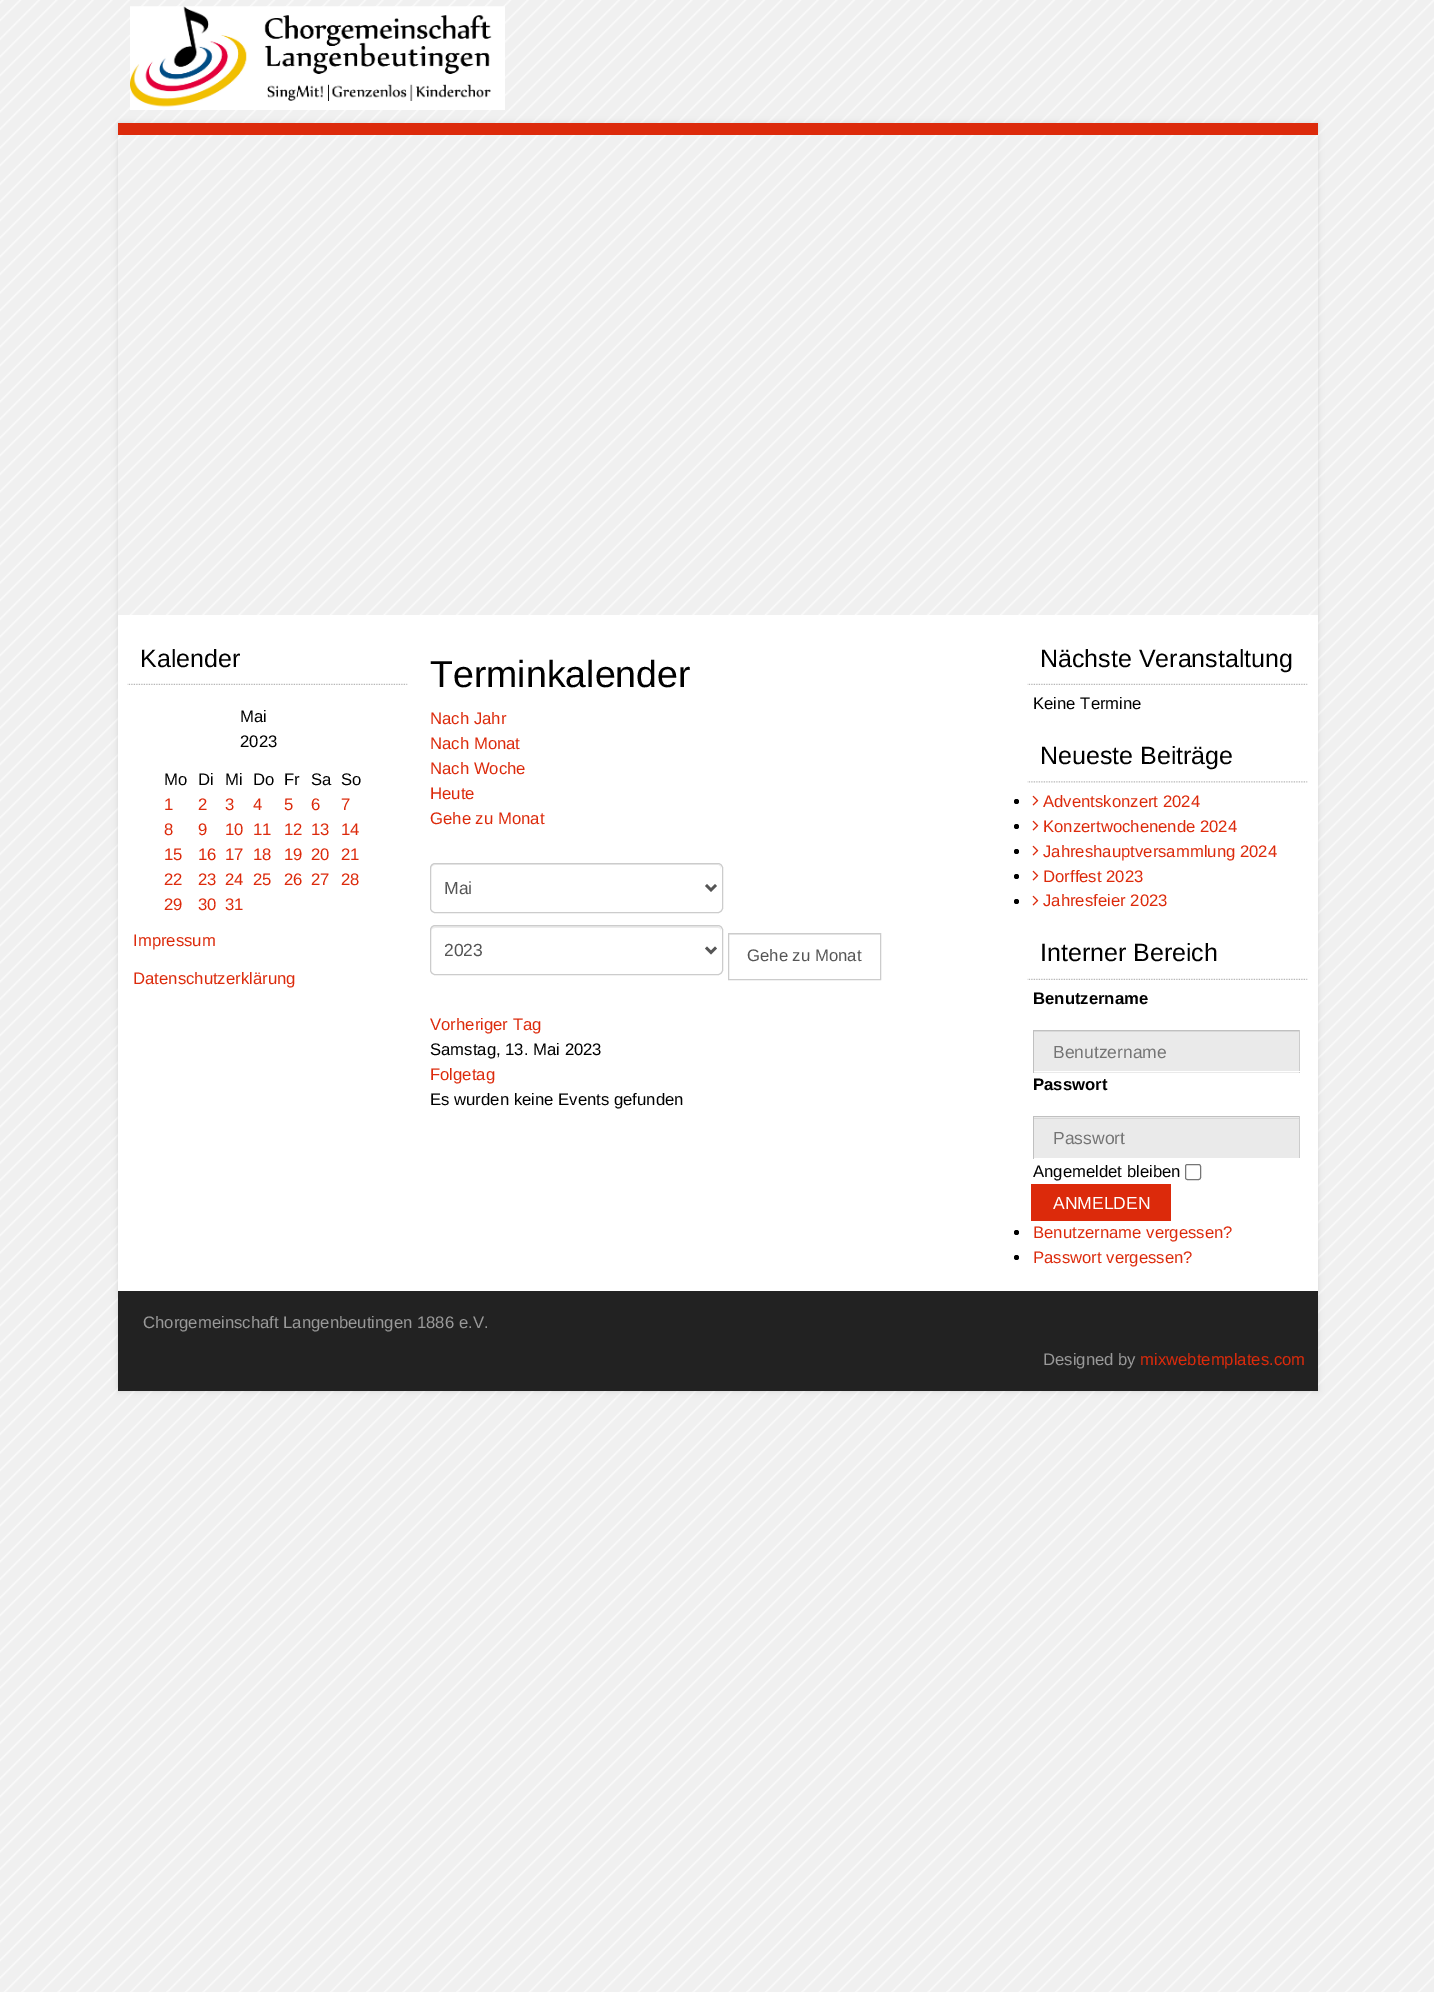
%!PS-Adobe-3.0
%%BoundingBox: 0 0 1434 1992
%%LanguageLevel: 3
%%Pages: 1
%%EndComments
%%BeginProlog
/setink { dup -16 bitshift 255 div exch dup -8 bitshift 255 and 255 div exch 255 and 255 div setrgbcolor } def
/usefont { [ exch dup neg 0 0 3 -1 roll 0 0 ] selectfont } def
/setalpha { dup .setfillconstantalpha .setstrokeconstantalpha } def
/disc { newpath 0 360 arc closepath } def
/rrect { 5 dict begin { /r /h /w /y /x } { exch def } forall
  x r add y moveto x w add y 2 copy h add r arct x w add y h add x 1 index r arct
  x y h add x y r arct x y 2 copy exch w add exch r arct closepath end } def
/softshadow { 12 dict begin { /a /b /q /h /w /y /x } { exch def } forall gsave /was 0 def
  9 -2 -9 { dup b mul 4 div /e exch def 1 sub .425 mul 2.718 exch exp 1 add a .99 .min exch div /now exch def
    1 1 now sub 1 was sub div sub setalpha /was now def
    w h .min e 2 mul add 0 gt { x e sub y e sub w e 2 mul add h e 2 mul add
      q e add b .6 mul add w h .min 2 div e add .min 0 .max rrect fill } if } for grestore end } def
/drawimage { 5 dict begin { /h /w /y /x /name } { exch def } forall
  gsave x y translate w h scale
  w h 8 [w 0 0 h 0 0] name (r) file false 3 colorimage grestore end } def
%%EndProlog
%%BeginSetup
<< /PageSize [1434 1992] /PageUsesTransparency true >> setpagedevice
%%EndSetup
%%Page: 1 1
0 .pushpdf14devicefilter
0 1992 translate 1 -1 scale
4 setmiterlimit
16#FFFFFF setink
0 0 1434 1992 rectfill
(img1.raw) 0 0 1434 1992 drawimage
(img2.raw) 130 6 375 104 drawimage
gsave
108 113 moveto 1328 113 lineto 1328 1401 lineto 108 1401 lineto closepath 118 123 moveto 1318 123 lineto 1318 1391 lineto 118 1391 lineto closepath eoclip newpath
16#000000 setink
118 123 1200 1268 0 3 0.1 softshadow
grestore
16#DC2A0B setink
118 123 1200 12 rectfill
16#FFFFFF setink
118 615 1200 676 rectfill
(img3.raw) 127 683 281 2 drawimage
/LiberationSans-Regular 25 usefont
16#000000 setink
140 667 moveto (Kalender) show
/LiberationSans-Regular 16.7 usefont
[
    [(Mai) 240 722]
    [(2023) 240 747]
    [(Mo) 164 785]
    [(Di) 198 785]
    [(Mi) 225 785]
    [(Do) 253 785]
    [(Fr) 284 785]
    [(Sa) 311 785]
    [(So) 341 785]
] { aload pop moveto show } forall
16#DC2A0B setink
[
    [(1) 164 810]
    [(2) 198 810]
    [(3) 225 810]
    [(4) 253 810]
    [(5) 284 810]
    [(6) 311 810]
    [(7) 341 810]
    [(8) 164 835]
    [(9) 198 835]
    [(10) 225 835]
    [(11) 253 835]
    [(12) 284 835]
    [(13) 311 835]
    [(14) 341 835]
    [(15) 164 860]
    [(16) 198 860]
    [(17) 225 860]
    [(18) 253 860]
    [(19) 284 860]
    [(20) 311 860]
    [(21) 341 860]
    [(22) 164 885]
    [(23) 198 885]
    [(24) 225 885]
    [(25) 253 885]
    [(26) 284 885]
    [(27) 311 885]
    [(28) 341 885]
    [(29) 164 910]
    [(30) 198 910]
    [(31) 225 910]
    [(Impressum) 133 946]
    [(Datenschutzerklärung) 133 984]
] { aload pop moveto show } forall
/LiberationSans-Regular 37.5 usefont
16#000000 setink
430 687 moveto (Terminkalender) show
/LiberationSans-Regular 16.7 usefont
16#DC2A0B setink
[
    [(Nach Jahr) 430 724]
    [(Nach Monat) 430 749]
    [(Nach Woche) 430 774]
    [(Heute) 430 799]
    [(Gehe zu Monat) 430 824]
] { aload pop moveto show } forall
16#ECECEC setink
435 865 moveto 718 865 lineto 720 865 721 867 721 869 curveto 721 866 720 864 717 864 curveto 435 864 lineto 432 864 431 866 431 869 curveto 431 867 433 865 435 865 curveto closepath fill
16#CCCCCC setink
430.5 863.5 292 49 4.5 rrect stroke
16#555555 setink
2.5 setlinewidth
706 885 moveto 711 890 lineto 716 885 lineto stroke
/LiberationSans-Regular 17.5 usefont
444 894 moveto (Mai) show
16#ECECEC setink
435 928 moveto 718 928 lineto 720 928 721 929 721 931 curveto 721 928 720 926 717 926 curveto 435 926 lineto 432 926 431 928 431 931 curveto 431 929 433 928 435 928 curveto closepath fill
16#CCCCCC setink
1 setlinewidth
430.5 925.5 292 49 4.5 rrect stroke
16#555555 setink
2.5 setlinewidth
706 947.5 moveto 711 952.5 lineto 716 947.5 lineto stroke
444 956 moveto (2023) show
16#ECECEC setink
729 934 151 1 rectfill
16#CCCCCC setink
1 setlinewidth
728.5 933.5 152 46 rectstroke
/LiberationSans-Regular 16.7 usefont
16#555555 setink
747 961 moveto (Gehe zu Monat) show
16#DC2A0B setink
430 1030 moveto (Vorheriger Tag) show
16#000000 setink
430 1055 moveto (Samstag, 13. Mai 2023) show
16#DC2A0B setink
430 1080 moveto (Folgetag) show
16#000000 setink
430 1105 moveto (Es wurden keine Events gefunden) show
(img3.raw) 1027 683 281 2 drawimage
/LiberationSans-Regular 25 usefont
1040 667 moveto (Nächste Veranstaltung) show
/LiberationSans-Regular 16.7 usefont
1033 709 moveto (Keine Termine) show
(img4.raw) 1027 781 281 2 drawimage
/LiberationSans-Regular 25 usefont
1040 764 moveto (Neueste Beiträge) show
1016.5 801.5 2.5 disc fill
(img5.raw) 1032 795 7 11 drawimage
/LiberationSans-Regular 16.7 usefont
16#DC2A0B setink
1043 807 moveto (Adventskonzert 2024) show
16#000000 setink
1016.5 826.5 2.5 disc fill
(img5.raw) 1032 820 7 11 drawimage
16#DC2A0B setink
1043 832 moveto (Konzertwochenende 2024) show
16#000000 setink
1016.5 851.5 2.5 disc fill
(img5.raw) 1032 845 7 11 drawimage
16#DC2A0B setink
1043 857 moveto (Jahreshauptversammlung 2024) show
16#000000 setink
1016.5 876.5 2.5 disc fill
(img5.raw) 1032 870 7 11 drawimage
16#DC2A0B setink
1043 882 moveto (Dorffest 2023) show
16#000000 setink
1016.5 901.5 2.5 disc fill
(img5.raw) 1032 895 7 11 drawimage
16#DC2A0B setink
1043 906 moveto (Jahresfeier 2023) show
(img3.raw) 1027 978 281 2 drawimage
/LiberationSans-Regular 25 usefont
16#000000 setink
1040 961 moveto (Interner Bereich) show
/LiberationSans-Bold 16.7 usefont
1033 1004 moveto (Benutzername) show
[
    [1034 1032 265 41 16#EAEAEA]
    [1034 1031 265 1 16#D8D8D8]
    [1033 1030 267 1 16#C0C0C0]
    [1299 1030 1 43 16#CCCCCC]
    [1033 1071 267 1 16#FFFFFF]
    [1033 1030 1 43 16#C0C0C0]
] { aload pop setink rectfill } forall
/LiberationSans-Regular 17.5 usefont
16#757575 setink
1053 1058 moveto (Benutzername) show
/LiberationSans-Bold 16.7 usefont
16#000000 setink
1033 1090 moveto (Passwort) show
[
    [1034 1117 265 41 16#EAEAEA]
    [1034 1118 265 1 16#D8D8D8]
    [1033 1116 267 1 16#C0C0C0]
    [1299 1116 1 43 16#CCCCCC]
    [1299 1158 1 1 16#FFFFFF]
    [1033 1116 1 43 16#C0C0C0]
] { aload pop setink rectfill } forall
/LiberationSans-Regular 17.5 usefont
16#757575 setink
1053 1144 moveto (Passwort) show
/LiberationSans-Regular 16.7 usefont
16#000000 setink
1033 1177 moveto (Angemeldet bleiben) show
16#767676 setink
1185.5 1164.5 15 15 2 rrect stroke
16#DC2A0B setink
1031 1184 140 37 rectfill
/LiberationSans-Regular 17.5 usefont
16#FFFFFF setink
1053 1209 moveto (ANMELDEN) show
16#000000 setink
1016.5 1232.5 2.5 disc fill
/LiberationSans-Regular 16.7 usefont
16#DC2A0B setink
1033 1238 moveto (Benutzername vergessen?) show
16#000000 setink
1016.5 1257.5 2.5 disc fill
16#DC2A0B setink
1033 1263 moveto (Passwort vergessen?) show
16#222222 setink
118 1291 1200 100 rectfill
16#999999 setink
143 1328 moveto (Chorgemeinschaft Langenbeutingen 1886 e.V.) show
1043 1365 moveto (Designed by) show
16#DC2A0B setink
1140 1365 moveto (mixwebtemplates.com) show
.poppdf14devicefilter showpage
%%EOF
